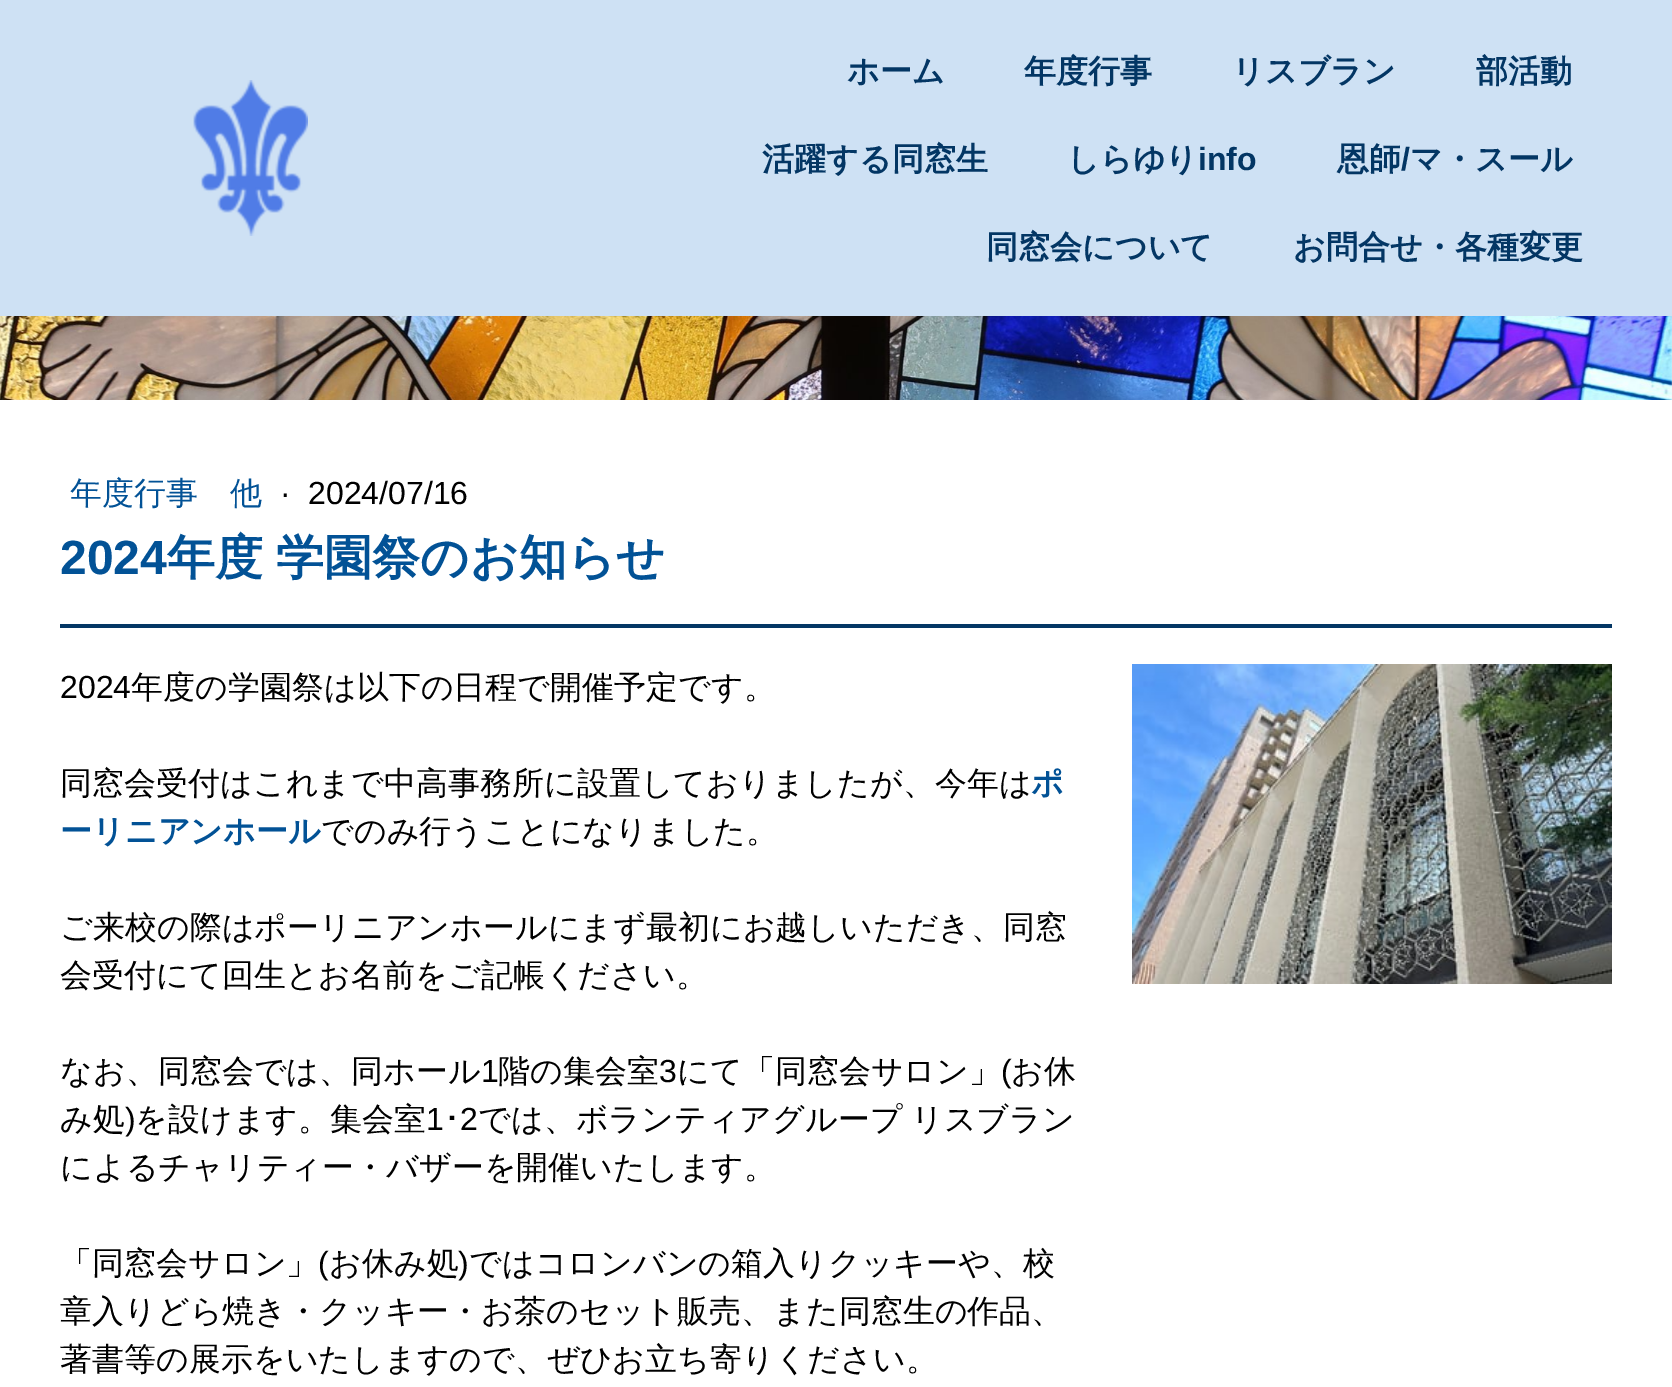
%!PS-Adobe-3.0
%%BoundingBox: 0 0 1672 1387
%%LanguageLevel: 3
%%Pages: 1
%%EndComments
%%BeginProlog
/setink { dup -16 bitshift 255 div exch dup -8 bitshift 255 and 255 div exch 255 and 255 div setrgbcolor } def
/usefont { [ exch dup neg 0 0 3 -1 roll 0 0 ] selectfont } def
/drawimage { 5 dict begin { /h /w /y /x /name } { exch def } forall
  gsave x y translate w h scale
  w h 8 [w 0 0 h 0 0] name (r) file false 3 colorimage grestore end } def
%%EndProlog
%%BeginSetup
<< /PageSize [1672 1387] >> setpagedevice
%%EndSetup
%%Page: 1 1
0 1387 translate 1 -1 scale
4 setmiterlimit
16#FFFFFF setink
0 0 1672 1387 rectfill
16#CEE1F4 setink
0 0 1672 316 rectfill
(img1.raw) 193 80 115 156 drawimage
/WenQuanYiZenHei-Bold 32 usefont
16#033664 setink
[
    [(ホーム) 847 82]
    [(年度行事) 1024 82]
    [(リスブラン) 1232 82]
    [(部活動) 1476 82]
    [(活躍する同窓生) 762 170]
    [(しらゆり) 1067 170]
] { aload pop moveto show } forall
/LiberationSans-Bold 32 usefont
1198 170 moveto (info) show
/WenQuanYiZenHei-Bold 32 usefont
1337 170 moveto (恩師) show
/LiberationSans-Bold 32 usefont
1401 170 moveto (/) show
/WenQuanYiZenHei-Bold 32 usefont
[
    [(マ・スール) 1410 170]
    [(同窓会について) 986 258]
    [(お問合せ・各種変更) 1293 258]
] { aload pop moveto show } forall
(img2.raw) 0 316 1672 84 drawimage
/WenQuanYiZenHei-Medium 32 usefont
16#025296 setink
70 504 moveto (年度行事　他) show
/LiberationSans-Regular 32 usefont
16#000000 setink
280 504 moveto (·) show
308 504 moveto (2024/07/16) show
/LiberationSans-Bold 48 usefont
16#025296 setink
60 574 moveto (2024) show
/WenQuanYiZenHei-Bold 48 usefont
167 574 moveto -1 0 32 (年度 学園祭のお知らせ) widthshow
16#033664 setink
60 624 1552 4 rectfill
/LiberationSans-Regular 32 usefont
16#000000 setink
60 698 moveto (2024) show
/WenQuanYiZenHei-Medium 32 usefont
131 698 moveto (年度の学園祭は以下の日程で開催予定です。) show
60 794 moveto (同窓会受付はこれまで中高事務所に設置しておりましたが、今年は) show
/WenQuanYiZenHei-Bold 32 usefont
16#025296 setink
1031 794 moveto (ポ) show
60 842 moveto (ーリニアンホール) show
/WenQuanYiZenHei-Medium 32 usefont
16#000000 setink
[
    [(でのみ行うことになりました。) 321 842]
    [(ご来校の際はポーリニアンホールにまず最初にお越しいただき、同窓) 60 938]
    [(会受付にて回生とお名前をご記帳ください。) 60 986]
    [(なお、同窓会では、同ホール) 60 1082]
] { aload pop moveto show } forall
/LiberationSans-Regular 32 usefont
481 1082 moveto (1) show
/WenQuanYiZenHei-Medium 32 usefont
498 1082 moveto (階の集会室) show
/LiberationSans-Regular 32 usefont
659 1082 moveto (3) show
/WenQuanYiZenHei-Medium 32 usefont
677 1082 moveto (にて「同窓会サロン」) show
/LiberationSans-Regular 32 usefont
1001 1082 moveto (\() show
/WenQuanYiZenHei-Medium 32 usefont
1011 1082 moveto (お休) show
60 1130 moveto (み処) show
/LiberationSans-Regular 32 usefont
125 1130 moveto (\)) show
/WenQuanYiZenHei-Medium 32 usefont
135 1130 moveto (を設けます。集会室) show
/LiberationSans-Regular 32 usefont
426 1130 moveto (1) show
/IPAPGothic-Regular 32 usefont
444 1130 moveto (･) show
/LiberationSans-Regular 32 usefont
460 1130 moveto (2) show
/WenQuanYiZenHei-Medium 32 usefont
478 1130 moveto -1 0 32 (では、ボランティアグループ リスブラン) widthshow
60 1178 moveto (によるチャリティー・バザーを開催いたします。) show
60 1274 moveto (「同窓会サロン」) show
/LiberationSans-Regular 32 usefont
318 1274 moveto (\() show
/WenQuanYiZenHei-Medium 32 usefont
329 1274 moveto (お休み処) show
/LiberationSans-Regular 32 usefont
458 1274 moveto (\)) show
/WenQuanYiZenHei-Medium 32 usefont
[
    [(ではコロンバンの箱入りクッキーや、校) 469 1274]
    [(章入りどら焼き・クッキー・お茶のセット販売、また同窓生の作品、) 60 1322]
    [(著書等の展示をいたしますので、ぜひお立ち寄りください。) 60 1370]
] { aload pop moveto show } forall
(img3.raw) 1132 664 480 320 drawimage
showpage
%%EOF
